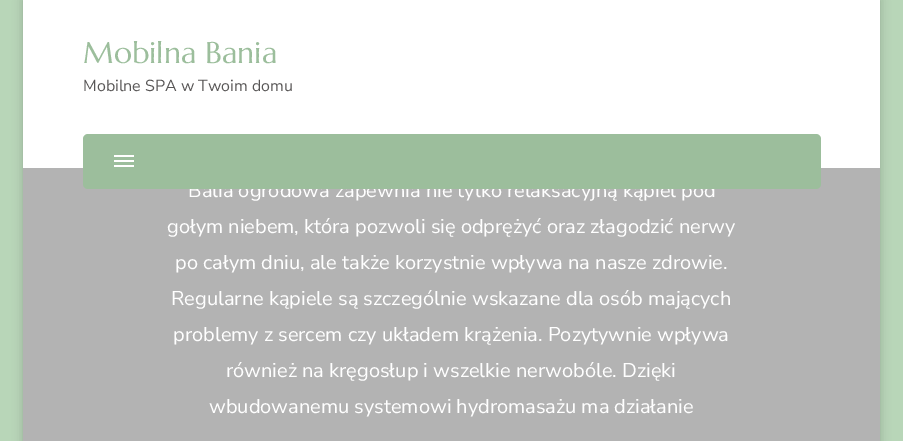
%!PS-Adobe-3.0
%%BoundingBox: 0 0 903 441
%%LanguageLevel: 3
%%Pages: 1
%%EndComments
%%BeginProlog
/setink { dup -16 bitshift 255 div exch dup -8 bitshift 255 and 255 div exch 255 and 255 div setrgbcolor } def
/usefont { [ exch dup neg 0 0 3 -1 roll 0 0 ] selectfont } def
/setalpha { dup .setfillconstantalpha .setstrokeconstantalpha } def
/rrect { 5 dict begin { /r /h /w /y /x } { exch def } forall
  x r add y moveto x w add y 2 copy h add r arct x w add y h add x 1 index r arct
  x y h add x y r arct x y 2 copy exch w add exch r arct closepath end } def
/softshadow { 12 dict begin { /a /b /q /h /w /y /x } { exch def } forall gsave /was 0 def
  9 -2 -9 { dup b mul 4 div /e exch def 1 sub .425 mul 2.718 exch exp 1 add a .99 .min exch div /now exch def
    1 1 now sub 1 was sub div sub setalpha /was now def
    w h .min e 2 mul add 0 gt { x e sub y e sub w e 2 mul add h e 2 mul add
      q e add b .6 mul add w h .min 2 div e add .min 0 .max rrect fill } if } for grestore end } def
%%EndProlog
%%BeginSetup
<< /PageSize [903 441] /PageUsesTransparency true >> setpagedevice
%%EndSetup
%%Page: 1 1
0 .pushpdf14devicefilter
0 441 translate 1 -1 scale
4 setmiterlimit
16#B8D6B8 setink
0 0 903 441 rectfill
16#000000 setink
23 0 857 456 0 5 0.2 softshadow
16#FFFFFF setink
23 0 857 168 rectfill
/Marcellus-Regular 30 usefont
16#9CBE9C setink
83 63 moveto (Mobilna Bania) show
/NunitoSans-Regular 16 usefont
16#585656 setink
83 91 moveto (Mobilne SPA w Twoim domu) show
16#B3B3B3 setink
23 168 857 273 rectfill
/NunitoSans-Regular 20 usefont
16#FFFFFF setink
188 197 moveto (Balia ogrodowa zapewnia nie tylko relaksacyjną kąpiel pod) show
16#9CBE9C setink
83 134 738 55 5 rrect fill
[
    [114 155 20 2 16#FFFFFF]
    [114 160 20 2 16#FFFFFF]
    [114 165 20 2 16#FFFFFF]
] { aload pop setink rectfill } forall
[
    [(gołym niebem, która pozwoli się odprężyć oraz złagodzić nerwy) 167 233]
    [(po całym dniu, ale także korzystnie wpływa na nasze zdrowie.) 175 269]
    [(Regularne kąpiele są szczególnie wskazane dla osób mających) 171 305]
    [(problemy z sercem czy układem krążenia. Pozytywnie wpływa) 173 341]
    [(również na kręgosłup i wszelkie nerwobóle. Dzięki) 226 377]
    [(wbudowanemu systemowi hydromasażu ma działanie) 209 413]
] { aload pop moveto show } forall
.poppdf14devicefilter showpage
%%EOF
